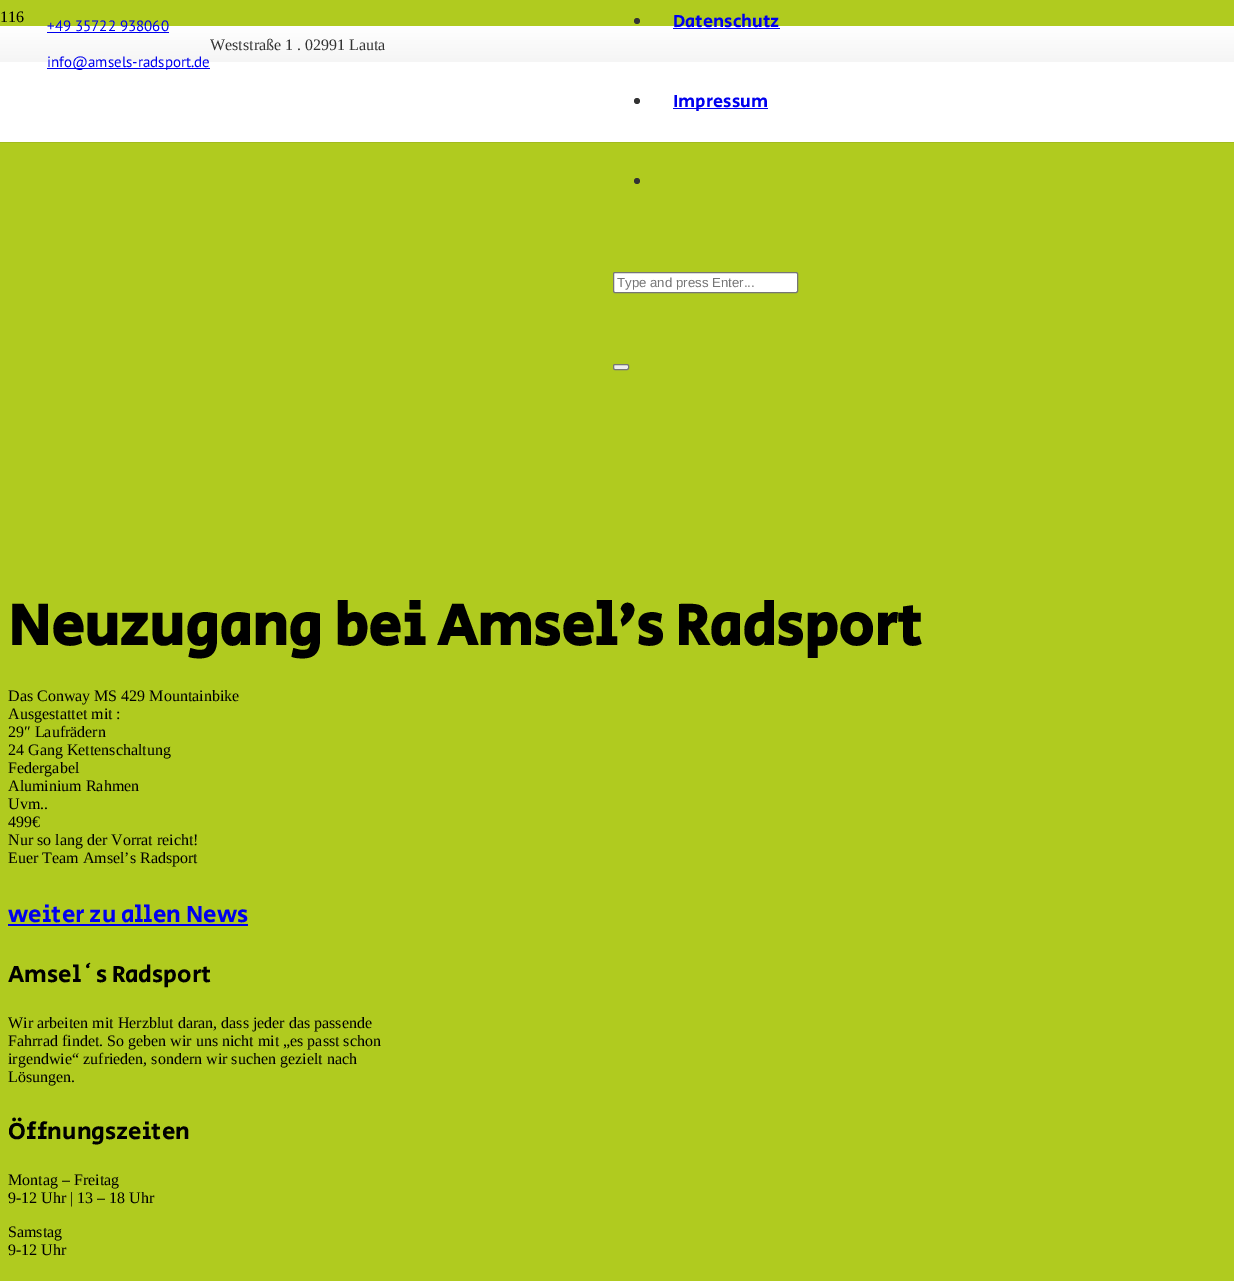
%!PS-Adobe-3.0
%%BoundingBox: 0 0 1234 1281
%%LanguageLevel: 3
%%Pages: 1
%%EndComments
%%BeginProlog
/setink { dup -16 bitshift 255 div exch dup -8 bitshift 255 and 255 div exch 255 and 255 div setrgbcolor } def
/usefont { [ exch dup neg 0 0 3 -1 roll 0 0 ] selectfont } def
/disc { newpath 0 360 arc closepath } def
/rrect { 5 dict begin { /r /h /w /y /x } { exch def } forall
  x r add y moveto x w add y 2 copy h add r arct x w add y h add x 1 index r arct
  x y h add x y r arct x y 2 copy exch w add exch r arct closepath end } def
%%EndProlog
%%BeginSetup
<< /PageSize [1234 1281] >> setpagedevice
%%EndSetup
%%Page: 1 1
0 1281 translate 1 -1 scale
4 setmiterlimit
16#B0CB1F setink
0 0 1234 1281 rectfill
/LiberationSerif-Regular 16 usefont
16#000000 setink
0 22 moveto (116) show
gsave 0 26 moveto 1234 26 lineto 1234 62 lineto 0 62 lineto closepath clip newpath
<< /ShadingType 2 /ColorSpace /DeviceRGB /Coords [617 62 617 26] /Extend [true true] /Function << /FunctionType 2 /Domain [0 1] /C0 [0.961 0.961 0.961] /C1 [1 1 1] /N 1 >> >> shfill grestore
/PTSans-Regular 15 usefont
16#0000EE setink
47 31 moveto (+49 35722 938060) show
[
    [47 32 122 1 16#0000EE]
    [0 62 1234 80 16#FFFFFF]
    [47 68 163 1 16#0000EE]
] { aload pop setink rectfill } forall
47 67 moveto (info@amsels-radsport.de) show
/LiberationSerif-Regular 16 usefont
16#333333 setink
210 50 moveto (Weststraße 1 . 02991 Lauta) show
16#A2BB1D setink
0 142 1234 1 rectfill
16#333333 setink
637 21 3 disc fill
/SecularOne-Regular 18 usefont
16#0000EE setink
673 27 moveto (Datenschutz) show
673 28 107 1 rectfill
16#333333 setink
637 101 3 disc fill
16#0000EE setink
673 108 95 1 rectfill
673 107 moveto (Impressum) show
16#333333 setink
637 181 3 disc fill
16#FFFFFF setink
613.5 272.5 184 20 1.5 rrect gsave fill grestore
16#767676 setink
stroke
/LiberationSans-Regular 13.25 usefont
16#757575 setink
617 287 moveto (Type and press Enter...) show
16#EFEFEF setink
613.5 364.5 15 5 1.5 rrect gsave fill grestore
16#767676 setink
stroke
/SecularOne-Bold 59.25 usefont
16#000000 setink
8 645 moveto (Neuzugang bei Amsel’s Radsport) show
/LiberationSerif-Regular 16 usefont
[
    [(Das Conway MS 429 Mountainbike) 8 701]
    [(Ausgestattet mit :) 8 719]
    [(29″ Laufrädern) 8 737]
    [(24 Gang Kettenschaltung) 8 755]
    [(Federgabel) 8 773]
    [(Aluminium Rahmen) 8 791]
    [(Uvm..) 8 809]
    [(499€) 8 827]
    [(Nur so lang der Vorrat reicht!) 8 845]
    [(Euer Team Amsel’s Radsport) 8 863]
] { aload pop moveto show } forall
/SecularOne-Regular 24 usefont
16#0000EE setink
8 922 moveto (weiter zu allen News) show
8 924 240 2 rectfill
16#000000 setink
8 982 moveto (Amsel`s Radsport) show
/LiberationSerif-Regular 16 usefont
[
    [(Wir arbeiten mit Herzblut daran, dass jeder das passende) 8 1028]
    [(Fahrrad findet. So geben wir uns nicht mit „es passt schon) 8 1046]
    [(irgendwie“ zufrieden, sondern wir suchen gezielt nach) 8 1064]
    [(Lösungen.) 8 1082]
] { aload pop moveto show } forall
/SecularOne-Regular 24 usefont
8 1139 moveto (Öffnungszeiten) show
/LiberationSerif-Regular 16 usefont
[
    [(Montag – Freitag) 8 1185]
    [(9-12 Uhr | 13 – 18 Uhr) 8 1203]
    [(Samstag) 8 1237]
    [(9-12 Uhr) 8 1255]
] { aload pop moveto show } forall
showpage
%%EOF
